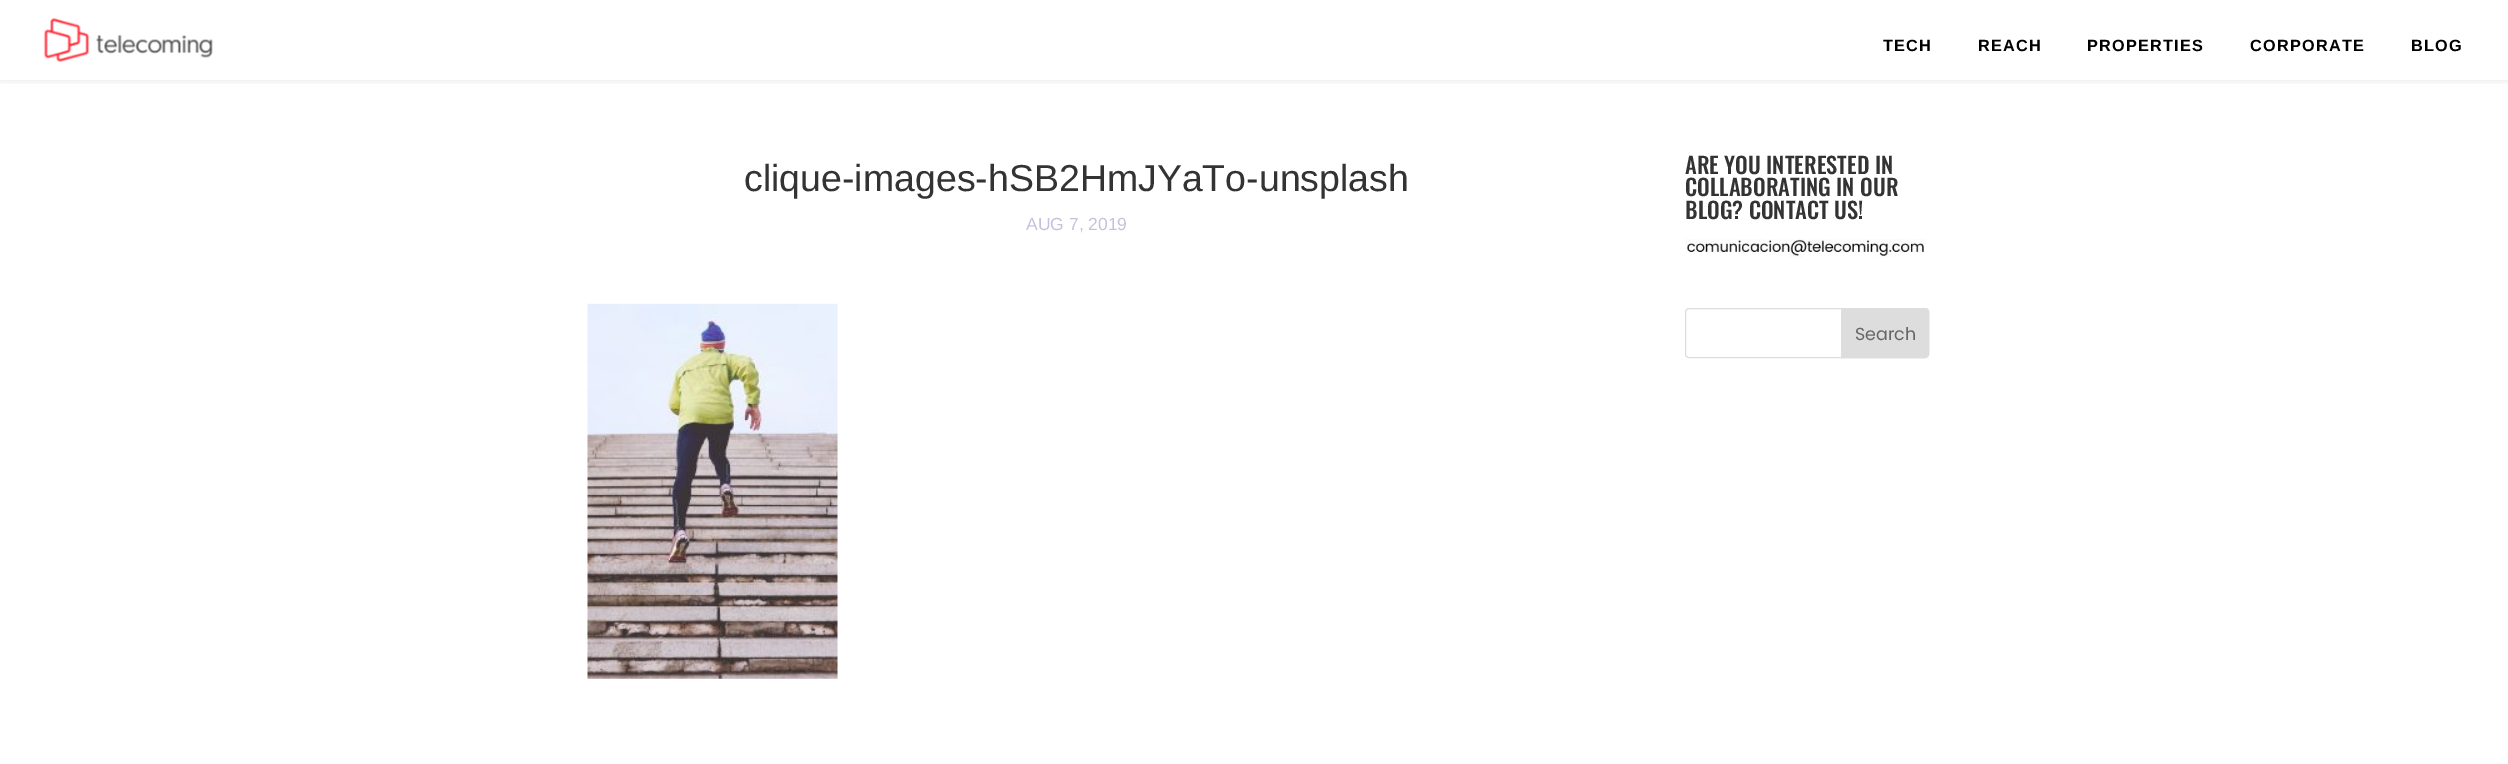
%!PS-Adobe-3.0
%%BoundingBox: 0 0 2508 764
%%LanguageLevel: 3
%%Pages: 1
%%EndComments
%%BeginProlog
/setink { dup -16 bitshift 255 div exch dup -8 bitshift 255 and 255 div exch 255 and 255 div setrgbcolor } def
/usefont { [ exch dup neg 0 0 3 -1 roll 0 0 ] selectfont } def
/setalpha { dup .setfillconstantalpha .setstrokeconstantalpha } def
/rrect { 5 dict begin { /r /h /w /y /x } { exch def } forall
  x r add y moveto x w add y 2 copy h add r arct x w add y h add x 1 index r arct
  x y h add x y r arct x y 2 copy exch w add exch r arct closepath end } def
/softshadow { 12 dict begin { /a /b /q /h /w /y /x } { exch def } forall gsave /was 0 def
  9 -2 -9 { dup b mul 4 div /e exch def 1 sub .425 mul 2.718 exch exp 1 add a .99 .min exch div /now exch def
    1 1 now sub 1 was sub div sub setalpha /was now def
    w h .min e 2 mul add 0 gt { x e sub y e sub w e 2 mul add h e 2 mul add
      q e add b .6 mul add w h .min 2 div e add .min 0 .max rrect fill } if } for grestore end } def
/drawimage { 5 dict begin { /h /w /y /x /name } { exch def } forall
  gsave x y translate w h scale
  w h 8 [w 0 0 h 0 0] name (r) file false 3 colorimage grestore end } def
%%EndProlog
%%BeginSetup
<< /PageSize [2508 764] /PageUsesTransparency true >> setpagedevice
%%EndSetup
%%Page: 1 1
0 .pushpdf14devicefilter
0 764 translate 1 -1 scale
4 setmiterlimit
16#FFFFFF setink
0 0 2508 764 rectfill
gsave
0 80 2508 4 rectclip
16#000000 setink
0 0 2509 80 0 4.5 0.1 softshadow
grestore
(img1.raw) 43 18 170 44 drawimage
/LiberationSans-Bold 16.25 usefont
16#000000 setink
1883 51 moveto 1.25 0 (TECH) ashow
1978 51 moveto 1.25 0 (REACH) ashow
2087 51 moveto 1.25 0 (PROPERTIES) ashow
2250 51 moveto 1.25 0 (CORPORATE) ashow
2411 51 moveto 1.25 0 (BLOG) ashow
/LiberationSans-Regular 37.5 usefont
16#333333 setink
744 191 moveto (clique-images-hSB2HmJYaTo-unsplash) show
/LiberationSans-Regular 17.5 usefont
16#C2C2DE setink
1026 230 moveto (AUG 7, 2019) show
(img2.raw) 587 303 251 376 drawimage
/Oswald-Medium 22.5 usefont
16#333333 setink
[
    [(ARE YOU INTERESTED IN) 1685 174]
    [(COLLABORATING IN OUR) 1685 196]
    [(BLOG? CONTACT US!) 1685 219]
] { aload pop moveto show } forall
(img3.raw) 1685 239 241 19 drawimage
16#DDDDDD setink
1685.5 308.5 243 49 3.5 rrect stroke
1841.5 308.5 moveto 1925 308.5 lineto 1927 308.5 1928.5 310 1928.5 312 curveto 1928.5 354 lineto 1928.5 356 1927 357.5 1925 357.5 curveto 1841.5 357.5 lineto closepath gsave fill grestore
stroke
/Poppins-Regular 17.5 usefont
16#666666 setink
1855 340 moveto (Search) show
.poppdf14devicefilter showpage
%%EOF
